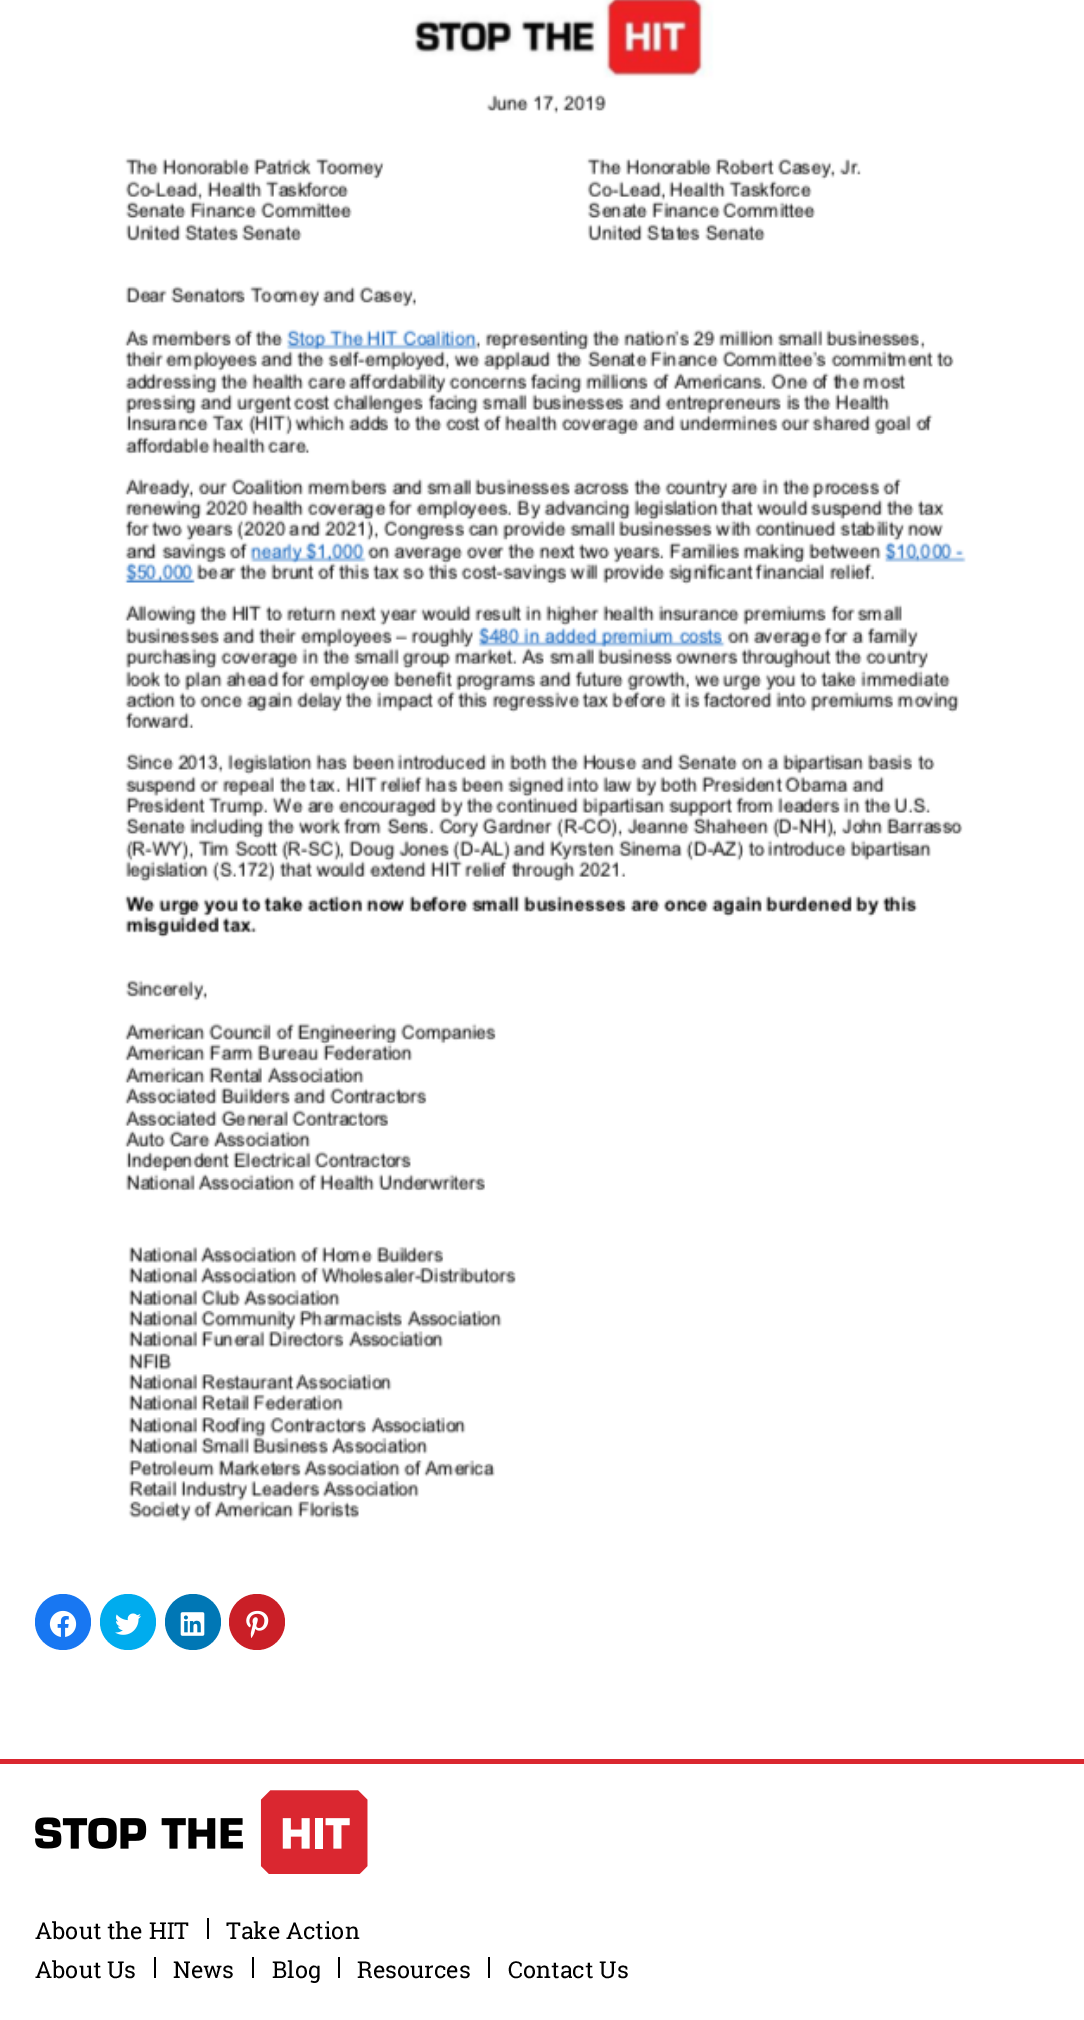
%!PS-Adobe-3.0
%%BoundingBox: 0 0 1084 2020
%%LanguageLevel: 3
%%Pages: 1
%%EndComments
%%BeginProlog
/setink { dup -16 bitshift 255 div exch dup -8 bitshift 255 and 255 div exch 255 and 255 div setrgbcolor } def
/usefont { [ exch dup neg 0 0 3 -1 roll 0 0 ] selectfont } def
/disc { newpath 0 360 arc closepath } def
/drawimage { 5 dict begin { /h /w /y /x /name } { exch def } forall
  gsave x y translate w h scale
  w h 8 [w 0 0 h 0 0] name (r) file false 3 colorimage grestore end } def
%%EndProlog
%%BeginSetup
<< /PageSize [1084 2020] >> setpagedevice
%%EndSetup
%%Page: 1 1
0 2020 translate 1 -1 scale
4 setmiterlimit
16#FFFFFF setink
0 0 1084 2020 rectfill
(img1.raw) 124 0 842 1192 drawimage
(img2.raw) 128 1246 388 277 drawimage
16#1877F2 setink
63 1622 28 disc fill
(img3.raw) 49 1610 28 27 drawimage
16#00ACEE setink
128 1622 28 disc fill
(img4.raw) 115 1613 26 22 drawimage
16#0077B5 setink
193 1622 28 disc fill
(img5.raw) 180 1612 25 24 drawimage
16#CA1F27 setink
257 1622 28 disc fill
(img6.raw) 246 1610 23 28 drawimage
16#DA2730 setink
0 1759 1084 5 rectfill
(img7.raw) 35 1790 333 84 drawimage
16#000000 setink
207 1918 2 21 rectfill
/RobotoSlab-Regular 23.25 usefont
35 1939 moveto (About the HIT) show
226 1939 moveto (Take Action) show
154 1957 2 21 rectfill
35 1978 moveto (About Us) show
252 1957 2 21 rectfill
173 1978 moveto (News) show
338 1957 2 21 rectfill
272 1978 moveto (Blog) show
488 1957 2 21 rectfill
357 1978 moveto (Resources) show
508 1978 moveto (Contact Us) show
showpage
%%EOF
